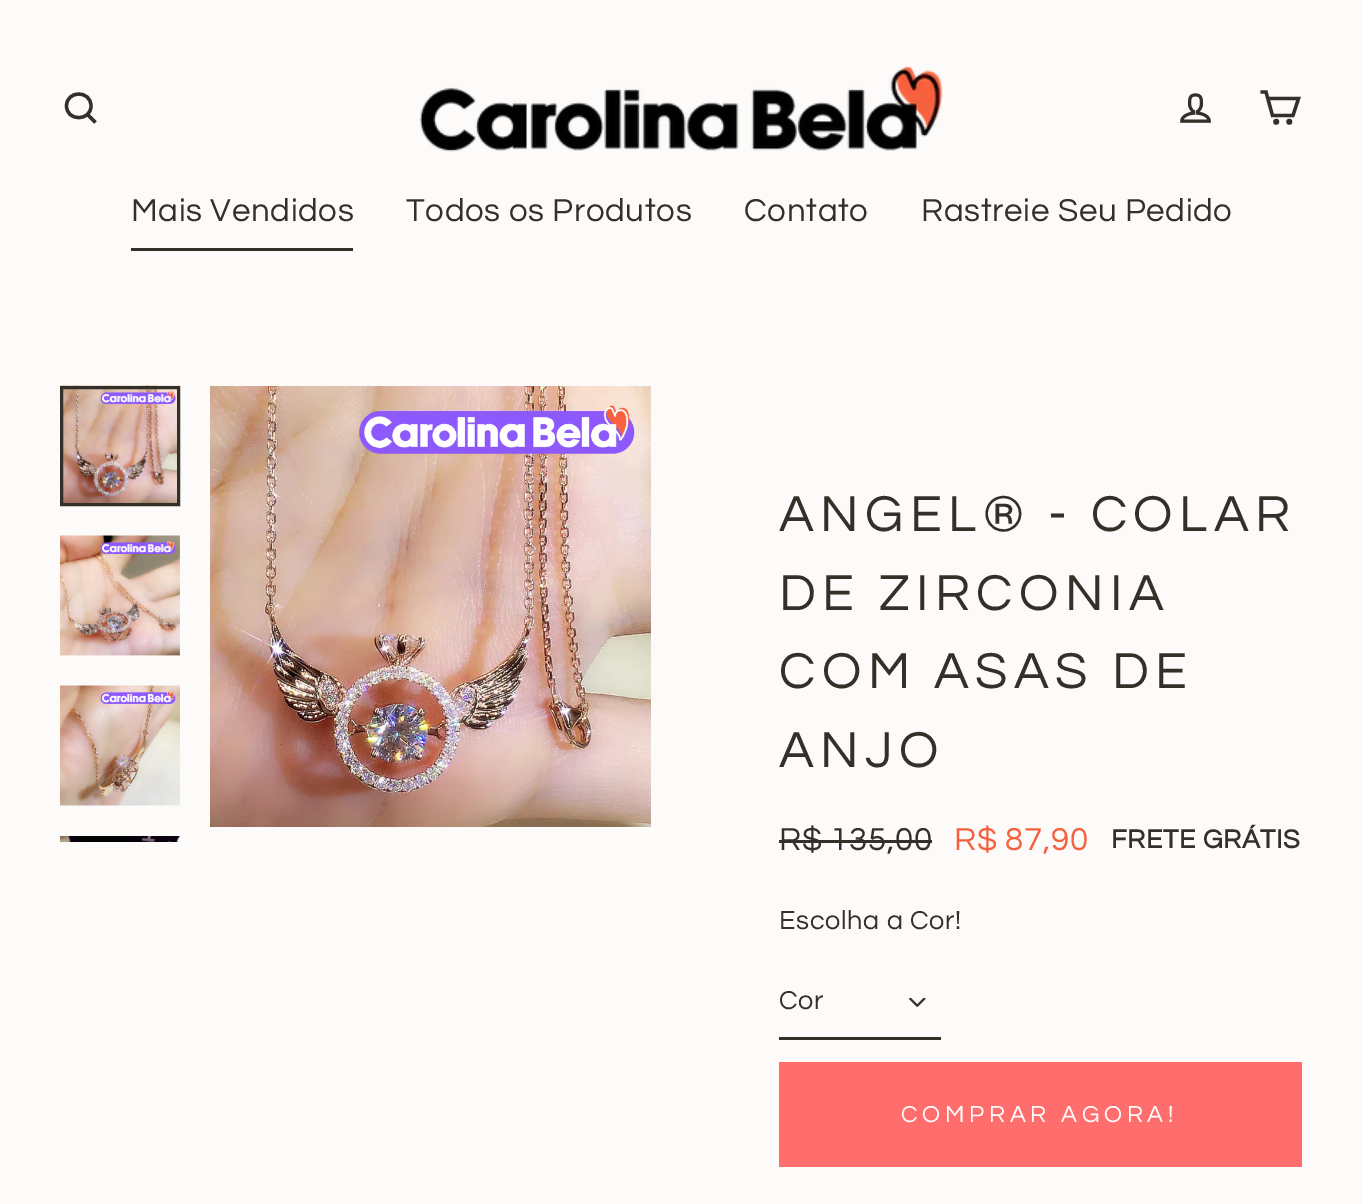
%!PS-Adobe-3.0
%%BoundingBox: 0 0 1362 1204
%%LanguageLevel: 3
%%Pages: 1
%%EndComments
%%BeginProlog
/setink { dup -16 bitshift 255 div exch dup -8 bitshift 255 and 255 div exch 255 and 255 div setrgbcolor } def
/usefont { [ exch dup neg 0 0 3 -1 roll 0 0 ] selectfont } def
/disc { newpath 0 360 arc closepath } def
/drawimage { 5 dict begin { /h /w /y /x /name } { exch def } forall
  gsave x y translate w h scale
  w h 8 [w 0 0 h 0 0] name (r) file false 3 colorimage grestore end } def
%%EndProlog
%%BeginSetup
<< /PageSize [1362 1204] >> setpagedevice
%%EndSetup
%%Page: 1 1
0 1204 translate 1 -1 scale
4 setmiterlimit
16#FDFBFA setink
0 0 1362 1204 rectfill
16#333029 setink
3.3 setlinewidth
91 106 moveto 91 121.5 66.5 121.5 66.5 106 curveto 66.5 90 91 90 91 106 curveto closepath 95.5 122.5 moveto 87.5 114.5 lineto stroke
(img1.raw) 419 66 524 86 drawimage
(img2.raw) 1180 93 31 30 drawimage
1267.5 98.5 moveto 1298.5 98.5 lineto 1293 115.5 lineto 1272.5 115.5 lineto 1266 92 lineto 1260.5 92 lineto stroke
1276.2 121.8 1.3 disc stroke
1289.3 121.8 1.3 disc gsave fill grestore
stroke
/Questrial-Regular 33 usefont
131 221 moveto 0.7 0 (Mais Vendidos) ashow
131 248 222 3 rectfill
406 221 moveto 0.7 0 (Todos os Produtos) ashow
744 221 moveto 0.7 0 (Contato) ashow
921 221 moveto 0.7 0 (Rastreie Seu Pedido) ashow
(img3.raw) 60 385 120 118 drawimage
3 setlinewidth
61.5 387.5 117 117 rectstroke
(img4.raw) 60 535 120 121 drawimage
(img5.raw) 60 685 120 121 drawimage
(img6.raw) 60 836 120 6 drawimage
(img7.raw) 210 386 441 441 drawimage
/Questrial-Regular 52.5 usefont
779 531 moveto 6.5 0 (ANGEL® - COLAR) ashow
779 610 moveto 6.5 0 (DE ZIRCONIA) ashow
779 688 moveto 6.5 0 (COM ASAS DE) ashow
779 767 moveto 6.5 0 (ANJO) ashow
/Questrial-Regular 33 usefont
779 850 moveto 0.7 0 (R$ 135,00) ashow
779 840 153 3 rectfill
16#F5613F setink
954 850 moveto 0.7 0 (R$ 87,90) ashow
/Questrial-Bold 27 usefont
16#333029 setink
1111 848 moveto 0.7 0 (FRETE GRÁTIS) ashow
/Questrial-Regular 27 usefont
779 929 moveto 0.7 0 (Escolha a Cor!) ashow
(img8.raw) 909 998 17 9 drawimage
779 1037 162 3 rectfill
779 1009 moveto 0.7 0 (Cor) ashow
16#FF6D6D setink
779 1062 523 105 rectfill
/Questrial-Regular 24 usefont
16#FFFFFF setink
901 1122 moveto 4.75 0 (COMPRAR AGORA!) ashow
showpage
%%EOF
